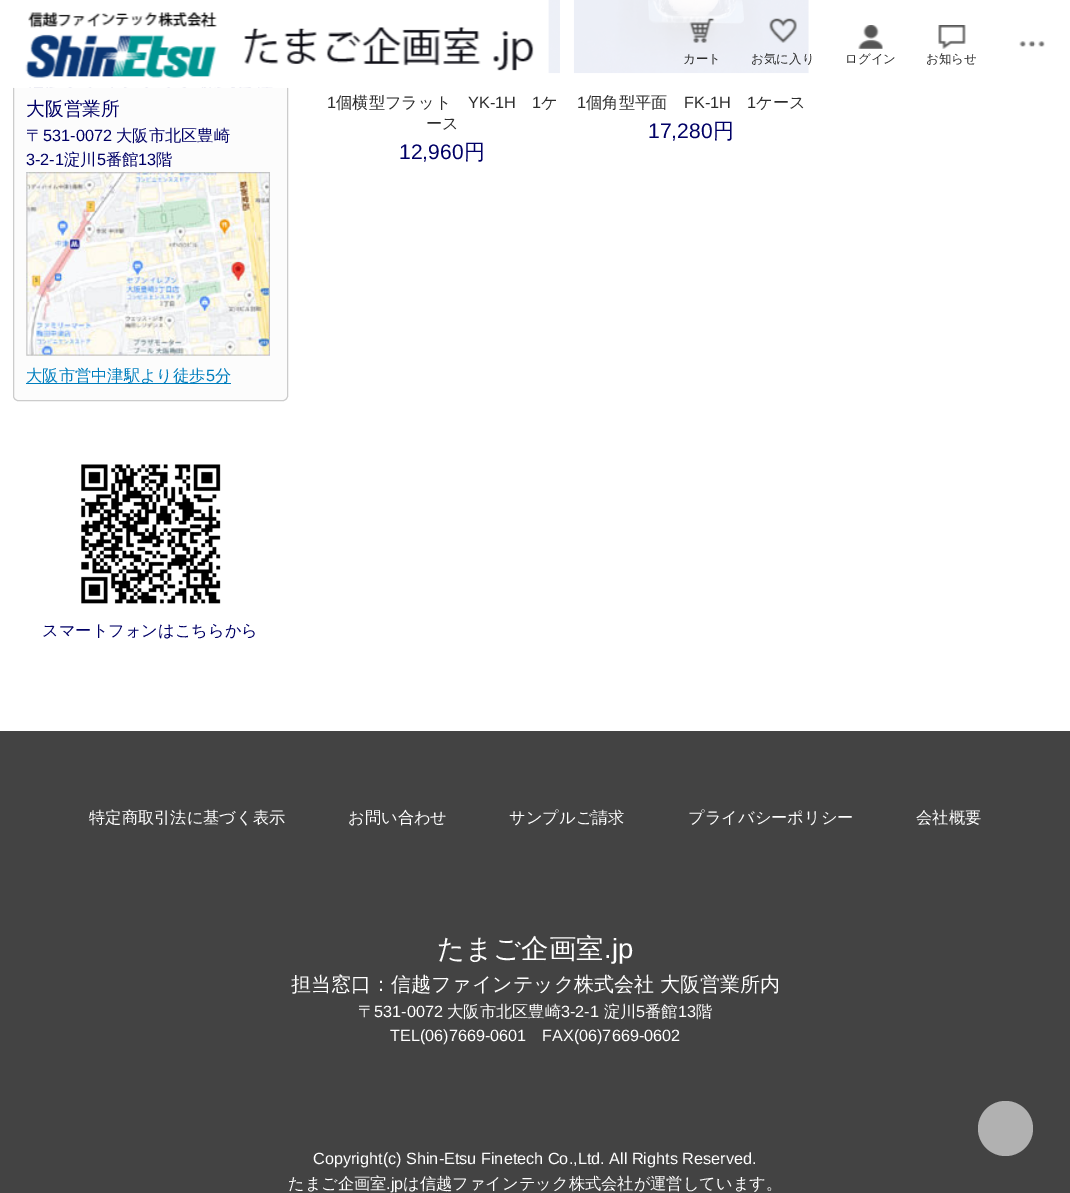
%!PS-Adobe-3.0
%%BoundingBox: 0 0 1070 1193
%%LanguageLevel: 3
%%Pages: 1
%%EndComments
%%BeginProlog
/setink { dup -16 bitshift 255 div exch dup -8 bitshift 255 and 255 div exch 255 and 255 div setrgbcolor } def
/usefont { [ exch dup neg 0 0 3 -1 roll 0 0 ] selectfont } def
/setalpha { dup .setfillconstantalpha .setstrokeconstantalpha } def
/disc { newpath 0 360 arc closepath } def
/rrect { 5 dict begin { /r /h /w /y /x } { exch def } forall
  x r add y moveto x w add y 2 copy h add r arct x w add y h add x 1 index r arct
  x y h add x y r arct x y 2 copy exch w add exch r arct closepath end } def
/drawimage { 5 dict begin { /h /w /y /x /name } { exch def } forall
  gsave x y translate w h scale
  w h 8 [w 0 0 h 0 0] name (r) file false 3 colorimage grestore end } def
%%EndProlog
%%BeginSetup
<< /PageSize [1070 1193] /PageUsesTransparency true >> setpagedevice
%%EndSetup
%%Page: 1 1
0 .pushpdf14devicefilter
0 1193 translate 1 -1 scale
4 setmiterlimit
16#FFFFFF setink
0 0 1070 1193 rectfill
16#FCFCFC setink
13.5 54.5 274 346 4.5 rrect gsave fill grestore
16#CCCCCC setink
stroke
(img9.raw) 548 0 12 74 drawimage
(img10.raw) 573 0 236 74 drawimage
0.9 setalpha
16#FFFFFF setink
13 0 796 88 rectfill
1 setalpha
(img1.raw) 13 0 536 88 drawimage
(img2.raw) 1019 41 26 6 drawimage
(img3.raw) 689 18 26 25 drawimage
/WenQuanYiZenHei-Medium 12.5 usefont
16#2D2D2D setink
683 63 moveto (カート) show
(img4.raw) 769 18 28 25 drawimage
751 63 moveto (お気に入り) show
(img5.raw) 858 25 25 24 drawimage
845 63 moveto (ログイン) show
(img6.raw) 938 25 28 24 drawimage
926 63 moveto (お知らせ) show
/WenQuanYiZenHei-Medium 18.75 usefont
16#000066 setink
26 115 moveto (大阪営業所) show
/WenQuanYiZenHei-Medium 16.25 usefont
26 141 moveto (〒) show
/LiberationSans-Regular 16.25 usefont
43 141 moveto (531-0072) show
/WenQuanYiZenHei-Medium 16.25 usefont
116 141 moveto (大阪市北区豊崎) show
/LiberationSans-Regular 16.25 usefont
26 165 moveto (3-2-1) show
/WenQuanYiZenHei-Medium 16.25 usefont
64 165 moveto (淀川) show
/LiberationSans-Regular 16.25 usefont
97 165 moveto (5) show
/WenQuanYiZenHei-Medium 16.25 usefont
106 165 moveto (番館) show
/LiberationSans-Regular 16.25 usefont
138 165 moveto (13) show
/WenQuanYiZenHei-Medium 16.25 usefont
156 165 moveto (階) show
(img7.raw) 26 172 244 184 drawimage
16#007EBE setink
26 383 205 1 rectfill
26 381 moveto (大阪市営中津駅より徒歩) show
/LiberationSans-Regular 16.25 usefont
206 381 moveto (5) show
/WenQuanYiZenHei-Medium 16.25 usefont
215 381 moveto (分) show
(img8.raw) 81 464 140 140 drawimage
16#000066 setink
42 636 moveto (スマートフォンはこちらから) show
/LiberationSans-Regular 16.25 usefont
16#2D2D2D setink
327 108 moveto (1) show
/WenQuanYiZenHei-Medium 16.25 usefont
336 108 moveto (個横型フラット) show
/LiberationSans-Regular 16.25 usefont
468 108 moveto (YK-1H) show
532 108 moveto (1) show
/WenQuanYiZenHei-Medium 16.25 usefont
541 108 moveto (ケ) show
426 129 moveto (ース) show
/LiberationSans-Regular 21 usefont
16#000066 setink
399 159 moveto (12,960) show
/WenQuanYiZenHei-Medium 21 usefont
464 159 moveto (円) show
/LiberationSans-Regular 16.25 usefont
16#2D2D2D setink
577 108 moveto (1) show
/WenQuanYiZenHei-Medium 16.25 usefont
586 108 moveto (個角型平面) show
/LiberationSans-Regular 16.25 usefont
684 108 moveto (FK-1H) show
747 108 moveto (1) show
/WenQuanYiZenHei-Medium 16.25 usefont
756 108 moveto (ケース) show
/LiberationSans-Regular 21 usefont
16#000066 setink
648 138 moveto (17,280) show
/WenQuanYiZenHei-Medium 21 usefont
713 138 moveto (円) show
16#434343 setink
0 731 1070 462 rectfill
/WenQuanYiZenHei-Medium 16.25 usefont
16#FFFFFF setink
[
    [(特定商取引法に基づく表示) 89 823]
    [(お問い合わせ) 348 823]
    [(サンプルご請求) 509 823]
    [(プライバシーポリシー) 688 823]
    [(会社概要) 916 823]
] { aload pop moveto show } forall
/WenQuanYiZenHei-Medium 27.5 usefont
437 958 moveto (たまご企画室) show
/LiberationSans-Regular 27.5 usefont
604 958 moveto (.jp) show
/WenQuanYiZenHei-Medium 20 usefont
291 991 moveto (担当窓口：信越ファインテック株式会社 大阪営業所内) show
/WenQuanYiZenHei-Medium 16.25 usefont
358 1017 moveto (〒) show
/LiberationSans-Regular 16.25 usefont
374 1017 moveto (531-0072) show
/WenQuanYiZenHei-Medium 16.25 usefont
447 1017 moveto (大阪市北区豊崎) show
/LiberationSans-Regular 16.25 usefont
561 1017 moveto (3-2-1) show
/WenQuanYiZenHei-Medium 16.25 usefont
604 1017 moveto (淀川) show
/LiberationSans-Regular 16.25 usefont
636 1017 moveto (5) show
/WenQuanYiZenHei-Medium 16.25 usefont
645 1017 moveto (番館) show
/LiberationSans-Regular 16.25 usefont
678 1017 moveto (13) show
/WenQuanYiZenHei-Medium 16.25 usefont
696 1017 moveto (階) show
/LiberationSans-Regular 16.25 usefont
[
    [(TEL\(06\)7669-0601) 390 1041]
    [(FAX\(06\)7669-0602) 542 1041]
    [(Copyright\(c\) Shin-Etsu Finetech Co.,Ltd. All Rights Reserved.) 313 1164]
] { aload pop moveto show } forall
/WenQuanYiZenHei-Medium 16.25 usefont
288 1189 moveto (たまご企画室) show
/LiberationSans-Regular 16.25 usefont
386 1189 moveto (.jp) show
/WenQuanYiZenHei-Medium 16.25 usefont
403 1189 moveto (は信越ファインテック株式会社が運営しています。) show
16#B1B1B1 setink
1005.5 1128.5 27.5 disc fill
.poppdf14devicefilter showpage
%%EOF
